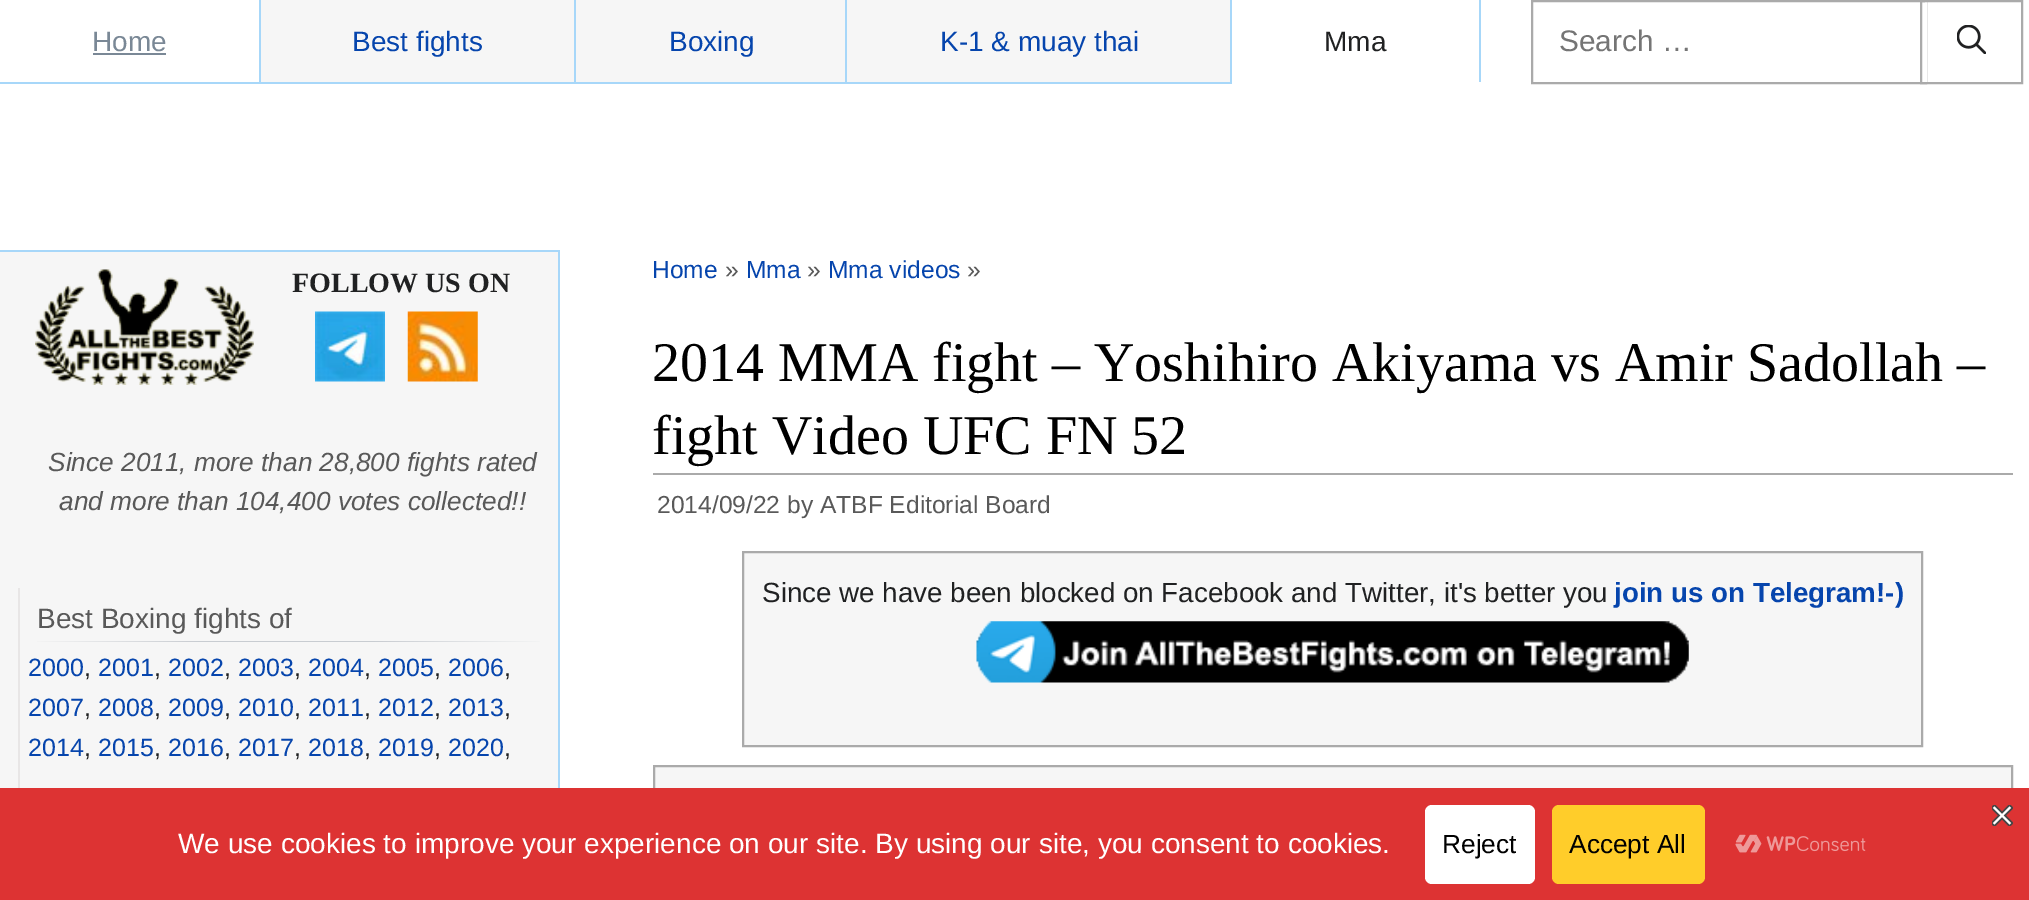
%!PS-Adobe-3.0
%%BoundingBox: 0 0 2029 900
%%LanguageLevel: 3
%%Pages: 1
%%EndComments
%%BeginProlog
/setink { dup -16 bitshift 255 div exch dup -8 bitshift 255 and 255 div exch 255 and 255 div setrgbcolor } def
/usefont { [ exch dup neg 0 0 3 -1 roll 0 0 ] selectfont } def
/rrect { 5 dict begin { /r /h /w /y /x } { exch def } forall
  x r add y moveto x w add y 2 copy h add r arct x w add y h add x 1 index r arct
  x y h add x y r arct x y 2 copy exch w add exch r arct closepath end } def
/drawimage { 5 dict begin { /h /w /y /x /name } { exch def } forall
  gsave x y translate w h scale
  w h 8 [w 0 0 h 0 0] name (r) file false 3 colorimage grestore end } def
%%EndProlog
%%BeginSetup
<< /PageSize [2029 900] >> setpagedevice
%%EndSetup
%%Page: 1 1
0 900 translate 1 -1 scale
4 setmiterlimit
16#FFFFFF setink
0 0 2029 900 rectfill
16#A7D7F9 setink
259 0 2 84 rectfill
0 82 261 2 rectfill
/LiberationSans-Regular 28 usefont
16#7A8896 setink
92 51 moveto (Home) show
[
    [93 53 73 2 16#7A8896]
    [261 0 313 82 16#F6F6F6]
    [574 0 2 84 16#A7D7F9]
    [261 82 315 2 16#A7D7F9]
] { aload pop setink rectfill } forall
16#0645AD setink
352 51 moveto (Best fights) show
[
    [576 0 269 82 16#F6F6F6]
    [845 0 2 84 16#A7D7F9]
    [576 82 271 2 16#A7D7F9]
] { aload pop setink rectfill } forall
16#0645AD setink
669 51 moveto (Boxing) show
[
    [847 0 383 82 16#F6F6F6]
    [1230 0 2 84 16#A7D7F9]
    [847 82 385 2 16#A7D7F9]
] { aload pop setink rectfill } forall
16#0645AD setink
940 51 moveto (K-1 & muay thai) show
16#A7D7F9 setink
1479 0 2 84 rectfill
16#FFFFFF setink
1479 82 2 2 rectfill
16#202122 setink
1324 51 moveto (Mma) show
16#AAAAAA setink
2 setlinewidth
1532 1 394 82 rectstroke
/LiberationSans-Regular 29.75 usefont
16#757575 setink
1559 51 moveto (Search …) show
16#FFFFFF setink
1925 2 2 80 rectfill
16#AAAAAA setink
1921 1 101 82 rectstroke
(img1.raw) 1957 25 29 29 drawimage
[
    [0 250 560 2 16#A7D7F9]
    [558 250 2 538 16#A7D7F9]
    [0 252 558 536 16#F6F6F6]
] { aload pop setink rectfill } forall
(img2.raw) 35 269 219 116 drawimage
/LiberationSerif-Bold 28 usefont
16#202122 setink
292 292 moveto (FOLLOW US ON) show
(img3.raw) 315 311 70 71 drawimage
(img4.raw) 407 311 71 71 drawimage
/LiberationSans-Italic 26.25 usefont
16#595959 setink
48 471 moveto (Since 2011, more than 28,800 fights rated) show
59 510 moveto (and more than 104,400 votes collected!!) show
16#E8E6E6 setink
18 588 2 200 rectfill
gsave 37 641 moveto 540 641 lineto 540 642 lineto 37 642 lineto closepath clip newpath
<< /ShadingType 2 /ColorSpace /DeviceRGB /Coords [28 641 550 641] /Extend [true true] /Function << /FunctionType 3 /Domain [0 1] /Functions [<< /FunctionType 2 /Domain [0 1] /C0 [0.965 0.965 0.965] /C1 [0.784 0.8 0.82] /N 1 >> << /FunctionType 2 /Domain [0 1] /C0 [0.784 0.8 0.82] /C1 [0.784 0.8 0.82] /N 1 >> << /FunctionType 2 /Domain [0 1] /C0 [0.784 0.8 0.82] /C1 [0.965 0.965 0.965] /N 1 >>] /Bounds [0.33 0.66] /Encode [0 1 0 1 0 1] >> >> shfill grestore
/LiberationSans-Regular 28 usefont
16#595959 setink
37 628 moveto (Best Boxing fights of) show
/LiberationSans-Regular 25 usefont
16#0645AD setink
28 676 moveto (2000) show
16#202122 setink
84 676 moveto (,) show
16#0645AD setink
98 676 moveto (2001) show
16#202122 setink
154 676 moveto (,) show
16#0645AD setink
168 676 moveto (2002) show
16#202122 setink
224 676 moveto (,) show
16#0645AD setink
238 676 moveto (2003) show
16#202122 setink
294 676 moveto (,) show
16#0645AD setink
308 676 moveto (2004) show
16#202122 setink
364 676 moveto (,) show
16#0645AD setink
378 676 moveto (2005) show
16#202122 setink
434 676 moveto (,) show
16#0645AD setink
448 676 moveto (2006) show
16#202122 setink
504 676 moveto (,) show
16#0645AD setink
28 716 moveto (2007) show
16#202122 setink
84 716 moveto (,) show
16#0645AD setink
98 716 moveto (2008) show
16#202122 setink
154 716 moveto (,) show
16#0645AD setink
168 716 moveto (2009) show
16#202122 setink
224 716 moveto (,) show
16#0645AD setink
238 716 moveto (2010) show
16#202122 setink
294 716 moveto (,) show
16#0645AD setink
308 716 moveto (2011) show
16#202122 setink
364 716 moveto (,) show
16#0645AD setink
378 716 moveto (2012) show
16#202122 setink
434 716 moveto (,) show
16#0645AD setink
448 716 moveto (2013) show
16#202122 setink
504 716 moveto (,) show
16#0645AD setink
28 756 moveto (2014) show
16#202122 setink
84 756 moveto (,) show
16#0645AD setink
98 756 moveto (2015) show
16#202122 setink
154 756 moveto (,) show
16#0645AD setink
168 756 moveto (2016) show
16#202122 setink
224 756 moveto (,) show
16#0645AD setink
238 756 moveto (2017) show
16#202122 setink
294 756 moveto (,) show
16#0645AD setink
308 756 moveto (2018) show
16#202122 setink
364 756 moveto (,) show
16#0645AD setink
378 756 moveto (2019) show
16#202122 setink
434 756 moveto (,) show
16#0645AD setink
448 756 moveto (2020) show
16#202122 setink
504 756 moveto (,) show
/LiberationSans-Regular 24.6 usefont
16#0645AD setink
652 278 moveto (Home) show
16#595959 setink
725 278 moveto (») show
16#0645AD setink
746 278 moveto (Mma) show
16#595959 setink
807 278 moveto (») show
16#0645AD setink
828 278 moveto (Mma videos) show
16#595959 setink
967 278 moveto (») show
16#AAAAAA setink
653 473 1360 2 rectfill
/LiberationSerif-Regular 56 usefont
16#000000 setink
652 381 moveto (2014 MMA fight – Yoshihiro Akiyama vs Amir Sadollah –) show
652 454 moveto (fight Video UFC FN 52) show
/LiberationSans-Regular 24.6 usefont
16#595959 setink
657 513 moveto (2014/09/22 by ATBF Editorial Board) show
16#F6F6F6 setink
743 552 moveto 1922 552 lineto 1922 746 lineto 743 746 lineto closepath gsave fill grestore
16#AAAAAA setink
stroke
/LiberationSans-Regular 27.75 usefont
16#202122 setink
762 602 moveto (Since we have been blocked on Facebook and Twitter, it's better you) show
/LiberationSans-Bold 27.75 usefont
16#0645AD setink
1614 602 moveto (join us on Telegram!-\)) show
(img5.raw) 976 621 713 62 drawimage
16#F6F6F6 setink
655 767 1356 21 rectfill
16#AAAAAA setink
654 766 1358 131 rectstroke
16#DD3333 setink
0 788 2029 112 rectfill
(img6.raw) 1992 805 21 21 drawimage
/LiberationSans-Regular 28 usefont
16#FFFFFF setink
178 853 moveto (We use cookies to improve your experience on our site. By using our site, you consent to cookies.) show
1425 805 110 79 7 rrect fill
/LiberationSans-Regular 26.25 usefont
16#000000 setink
1442 853 moveto (Reject) show
16#FFCD2A setink
1552 805 153 79 7 rrect fill
16#000000 setink
1569 853 moveto (Accept All) show
(img7.raw) 1735 834 131 19 drawimage
showpage
%%EOF
